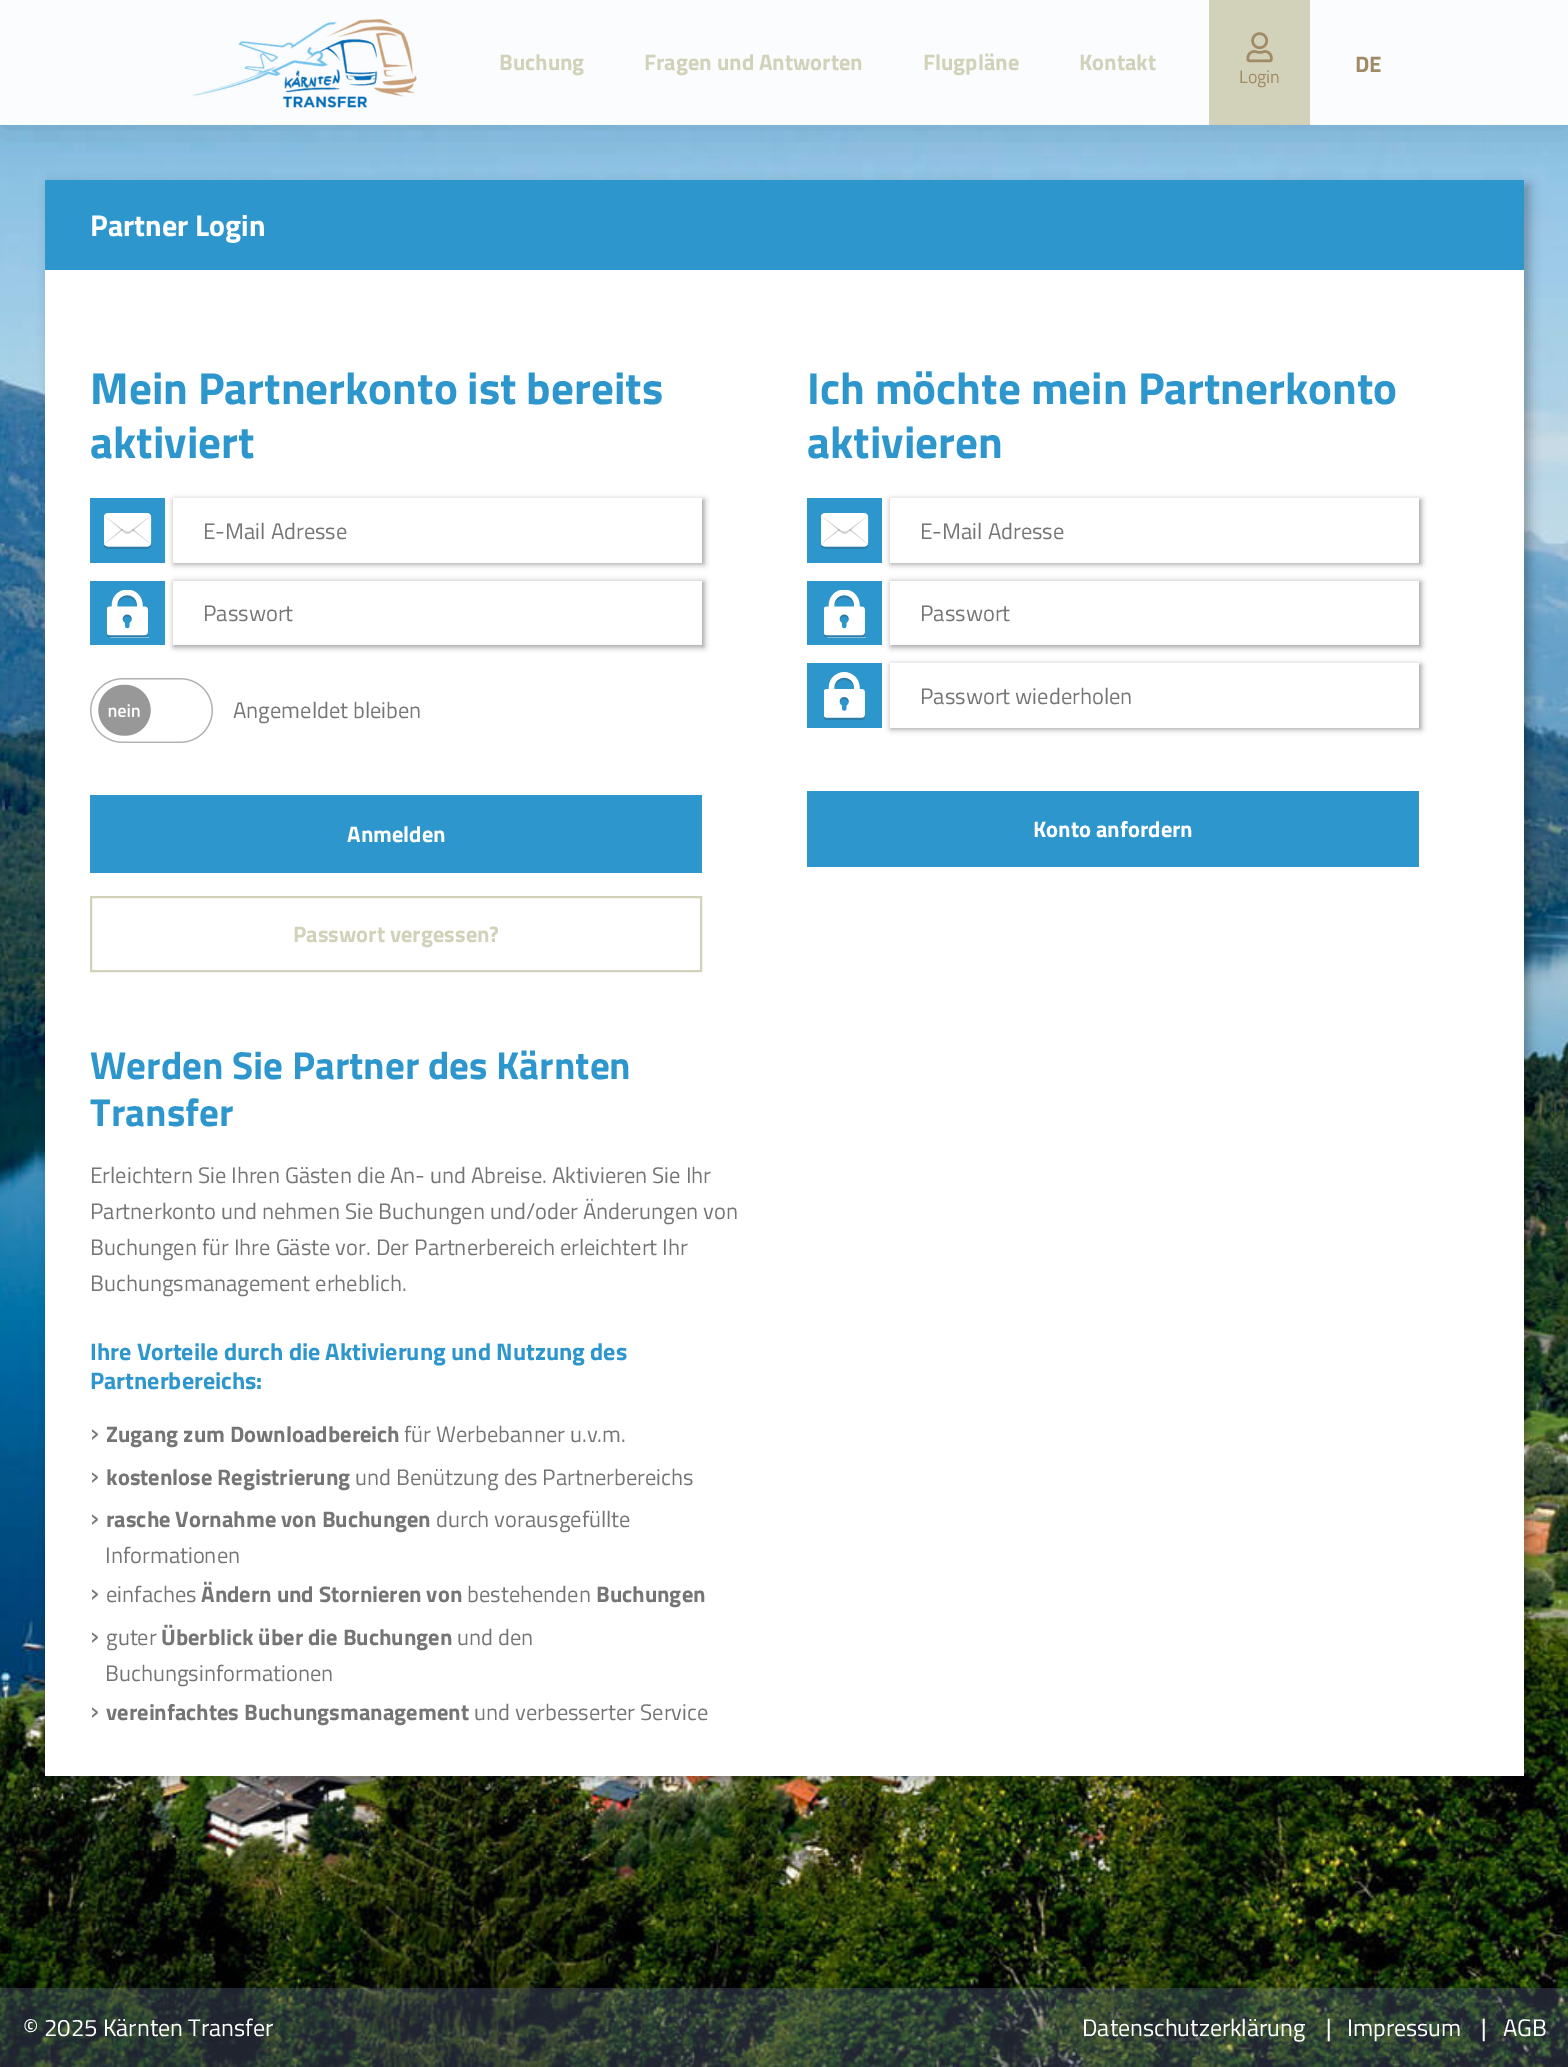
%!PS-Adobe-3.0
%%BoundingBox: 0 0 1568 2067
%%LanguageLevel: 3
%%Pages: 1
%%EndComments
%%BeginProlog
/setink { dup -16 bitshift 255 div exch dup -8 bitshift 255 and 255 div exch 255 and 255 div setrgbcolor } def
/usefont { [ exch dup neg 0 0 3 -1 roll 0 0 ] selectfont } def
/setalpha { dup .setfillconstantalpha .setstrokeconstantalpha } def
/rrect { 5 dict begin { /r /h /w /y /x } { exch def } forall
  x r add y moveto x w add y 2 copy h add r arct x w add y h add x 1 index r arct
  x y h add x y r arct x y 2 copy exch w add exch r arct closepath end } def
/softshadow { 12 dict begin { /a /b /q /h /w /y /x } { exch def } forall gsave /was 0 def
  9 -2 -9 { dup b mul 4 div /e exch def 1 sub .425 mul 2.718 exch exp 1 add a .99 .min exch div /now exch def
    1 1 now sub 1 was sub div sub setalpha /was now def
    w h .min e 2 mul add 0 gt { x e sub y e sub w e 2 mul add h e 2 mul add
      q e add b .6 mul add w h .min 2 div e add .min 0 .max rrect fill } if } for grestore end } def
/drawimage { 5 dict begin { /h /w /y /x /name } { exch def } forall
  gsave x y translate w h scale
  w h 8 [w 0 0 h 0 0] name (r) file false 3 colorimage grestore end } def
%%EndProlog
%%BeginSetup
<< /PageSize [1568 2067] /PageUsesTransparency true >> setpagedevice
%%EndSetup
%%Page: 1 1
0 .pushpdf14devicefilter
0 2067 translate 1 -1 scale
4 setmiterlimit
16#FFFFFF setink
0 0 1568 2067 rectfill
(img1.raw) 0 125 1568 1942 drawimage
16#000000 setink
50 185 1479 1596 0 6 0.3 softshadow
16#2D96CD setink
45 180 1479 90 rectfill
16#000000 setink
0 0 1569 125 0 22.5 0.15 softshadow
16#FBFCFD setink
0 0 1568 125 rectfill
(img2.raw) 192 18 225 90 drawimage
/TitilliumWeb-Bold 22.5 usefont
16#D2D2BB setink
[
    [(Buchung) 499 70]
    [(Fragen und Antworten) 644 70]
    [(Flugpläne) 923 70]
    [(Kontakt) 1079 70]
] { aload pop moveto show } forall
16#A08B66 setink
1355 72 moveto (DE) show
16#D2D2BB setink
1209 0 101 125 rectfill
(img3.raw) 1246 32 27 31 drawimage
/TitilliumWeb-Regular 18 usefont
16#A08B66 setink
1239 83 moveto (Login) show
16#FFFFFF setink
45 270 1479 1506 rectfill
/TitilliumWeb-Bold 30 usefont
90 236 moveto (Partner Login) show
/TitilliumWeb-Bold 45 usefont
16#2D96CD setink
90 404 moveto (Mein Partnerkonto ist bereits) show
90 458 moveto (aktiviert) show
90 498 75 65 rectfill
(img4.raw) 104 513 48 36 drawimage
16#000000 setink
174 500 530 64 0 3 0.4 softshadow
16#FFFFFF setink
173 498 529 65 rectfill
/TitilliumWeb-Regular 22.5 usefont
16#757575 setink
203 539 moveto (E-Mail Adresse) show
16#2D96CD setink
90 581 75 64 rectfill
(img5.raw) 107 590 42 48 drawimage
gsave
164 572 moveto 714 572 lineto 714 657 lineto 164 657 lineto closepath 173 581 moveto 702 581 lineto 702 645 lineto 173 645 lineto closepath eoclip newpath
16#000000 setink
174 582 530 65 0 3 0.4 softshadow
grestore
16#757575 setink
203 621 moveto (Passwort) show
(img6.raw) 90 678 123 65 drawimage
233 718 moveto (Angemeldet bleiben) show
16#2D96CD setink
90 795 612 78 rectfill
/TitilliumWeb-Bold 22.5 usefont
16#FFFFFF setink
347 842 moveto (Anmelden) show
16#D2D2BB setink
2 setlinewidth
91 897 610 74 rectstroke
293 942 moveto (Passwort vergessen?) show
/TitilliumWeb-Bold 45 usefont
16#2D96CD setink
807 404 moveto (Ich möchte mein Partnerkonto) show
807 458 moveto (aktivieren) show
807 498 75 65 rectfill
(img4.raw) 821 513 48 36 drawimage
16#000000 setink
891 500 530 64 0 3 0.4 softshadow
16#FFFFFF setink
890 498 529 65 rectfill
/TitilliumWeb-Regular 22.5 usefont
16#757575 setink
920 539 moveto (E-Mail Adresse) show
16#2D96CD setink
807 581 75 64 rectfill
(img5.raw) 824 590 42 48 drawimage
gsave
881 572 moveto 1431 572 lineto 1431 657 lineto 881 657 lineto closepath 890 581 moveto 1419 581 lineto 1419 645 lineto 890 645 lineto closepath eoclip newpath
16#000000 setink
891 582 530 65 0 3 0.4 softshadow
grestore
16#757575 setink
920 621 moveto (Passwort) show
16#2D96CD setink
807 663 75 65 rectfill
(img7.raw) 824 672 41 48 drawimage
16#000000 setink
891 665 530 64 0 3 0.4 softshadow
16#FFFFFF setink
890 663 529 65 rectfill
16#757575 setink
920 704 moveto (Passwort wiederholen) show
16#2D96CD setink
807 791 612 76 rectfill
/TitilliumWeb-Bold 22.5 usefont
16#FFFFFF setink
1033 837 moveto (Konto anfordern) show
/TitilliumWeb-Bold 39 usefont
16#2D96CD setink
90 1079 moveto (Werden Sie Partner des Kärnten) show
90 1126 moveto (Transfer) show
/TitilliumWeb-Regular 22.5 usefont
16#757575 setink
[
    [(Erleichtern Sie Ihren Gästen die An- und Abreise. Aktivieren Sie Ihr) 90 1183]
    [(Partnerkonto und nehmen Sie Buchungen und/oder Änderungen von) 90 1219]
    [(Buchungen für Ihre Gäste vor. Der Partnerbereich erleichtert Ihr) 90 1255]
    [(Buchungsmanagement erheblich.) 90 1291]
] { aload pop moveto show } forall
/TitilliumWeb-Bold 24 usefont
16#2D96CD setink
90 1360 moveto (Ihre Vorteile durch die Aktivierung und Nutzung des) show
90 1389 moveto (Partnerbereichs:) show
/TitilliumWeb-Regular 30 usefont
16#757575 setink
90 1442 moveto (›) show
/TitilliumWeb-Bold 22.5 usefont
106 1442 moveto (Zugang zum Downloadbereich) show
/TitilliumWeb-Regular 22.5 usefont
404 1442 moveto (für Werbebanner u.v.m.) show
/TitilliumWeb-Regular 30 usefont
90 1485 moveto (›) show
/TitilliumWeb-Bold 22.5 usefont
106 1485 moveto (kostenlose Registrierung) show
/TitilliumWeb-Regular 22.5 usefont
355 1485 moveto (und Benützung des Partnerbereichs) show
/TitilliumWeb-Regular 30 usefont
90 1527 moveto (›) show
/TitilliumWeb-Bold 22.5 usefont
106 1527 moveto (rasche Vornahme von Buchungen) show
/TitilliumWeb-Regular 22.5 usefont
436 1527 moveto (durch vorausgefüllte) show
105 1563 moveto (Informationen) show
/TitilliumWeb-Regular 30 usefont
90 1602 moveto (›) show
/TitilliumWeb-Regular 22.5 usefont
106 1602 moveto (einfaches) show
/TitilliumWeb-Bold 22.5 usefont
201 1602 moveto (Ändern und Stornieren von) show
/TitilliumWeb-Regular 22.5 usefont
467 1602 moveto (bestehenden) show
/TitilliumWeb-Bold 22.5 usefont
596 1602 moveto (Buchungen) show
/TitilliumWeb-Regular 30 usefont
90 1645 moveto (›) show
/TitilliumWeb-Regular 22.5 usefont
106 1645 moveto (guter) show
/TitilliumWeb-Bold 22.5 usefont
161 1645 moveto (Überblick über die Buchungen) show
/TitilliumWeb-Regular 22.5 usefont
457 1645 moveto (und den) show
105 1681 moveto (Buchungsinformationen) show
/TitilliumWeb-Regular 30 usefont
90 1720 moveto (›) show
/TitilliumWeb-Bold 22.5 usefont
106 1720 moveto (vereinfachtes Buchungsmanagement) show
/TitilliumWeb-Regular 22.5 usefont
474 1720 moveto (und verbesserter Service) show
0.3 setalpha
16#677596 setink
0 1988 1568 79 rectfill
/TitilliumWeb-Regular 24 usefont
1 setalpha
16#FFFFFF setink
[
    [(© 2025 Kärnten Transfer) 23 2036]
    [(Datenschutzerklärung) 1082 2036]
    [(|) 1326 2036]
    [(Impressum) 1347 2036]
    [(|) 1481 2036]
    [(AGB) 1503 2036]
] { aload pop moveto show } forall
.poppdf14devicefilter showpage
%%EOF
